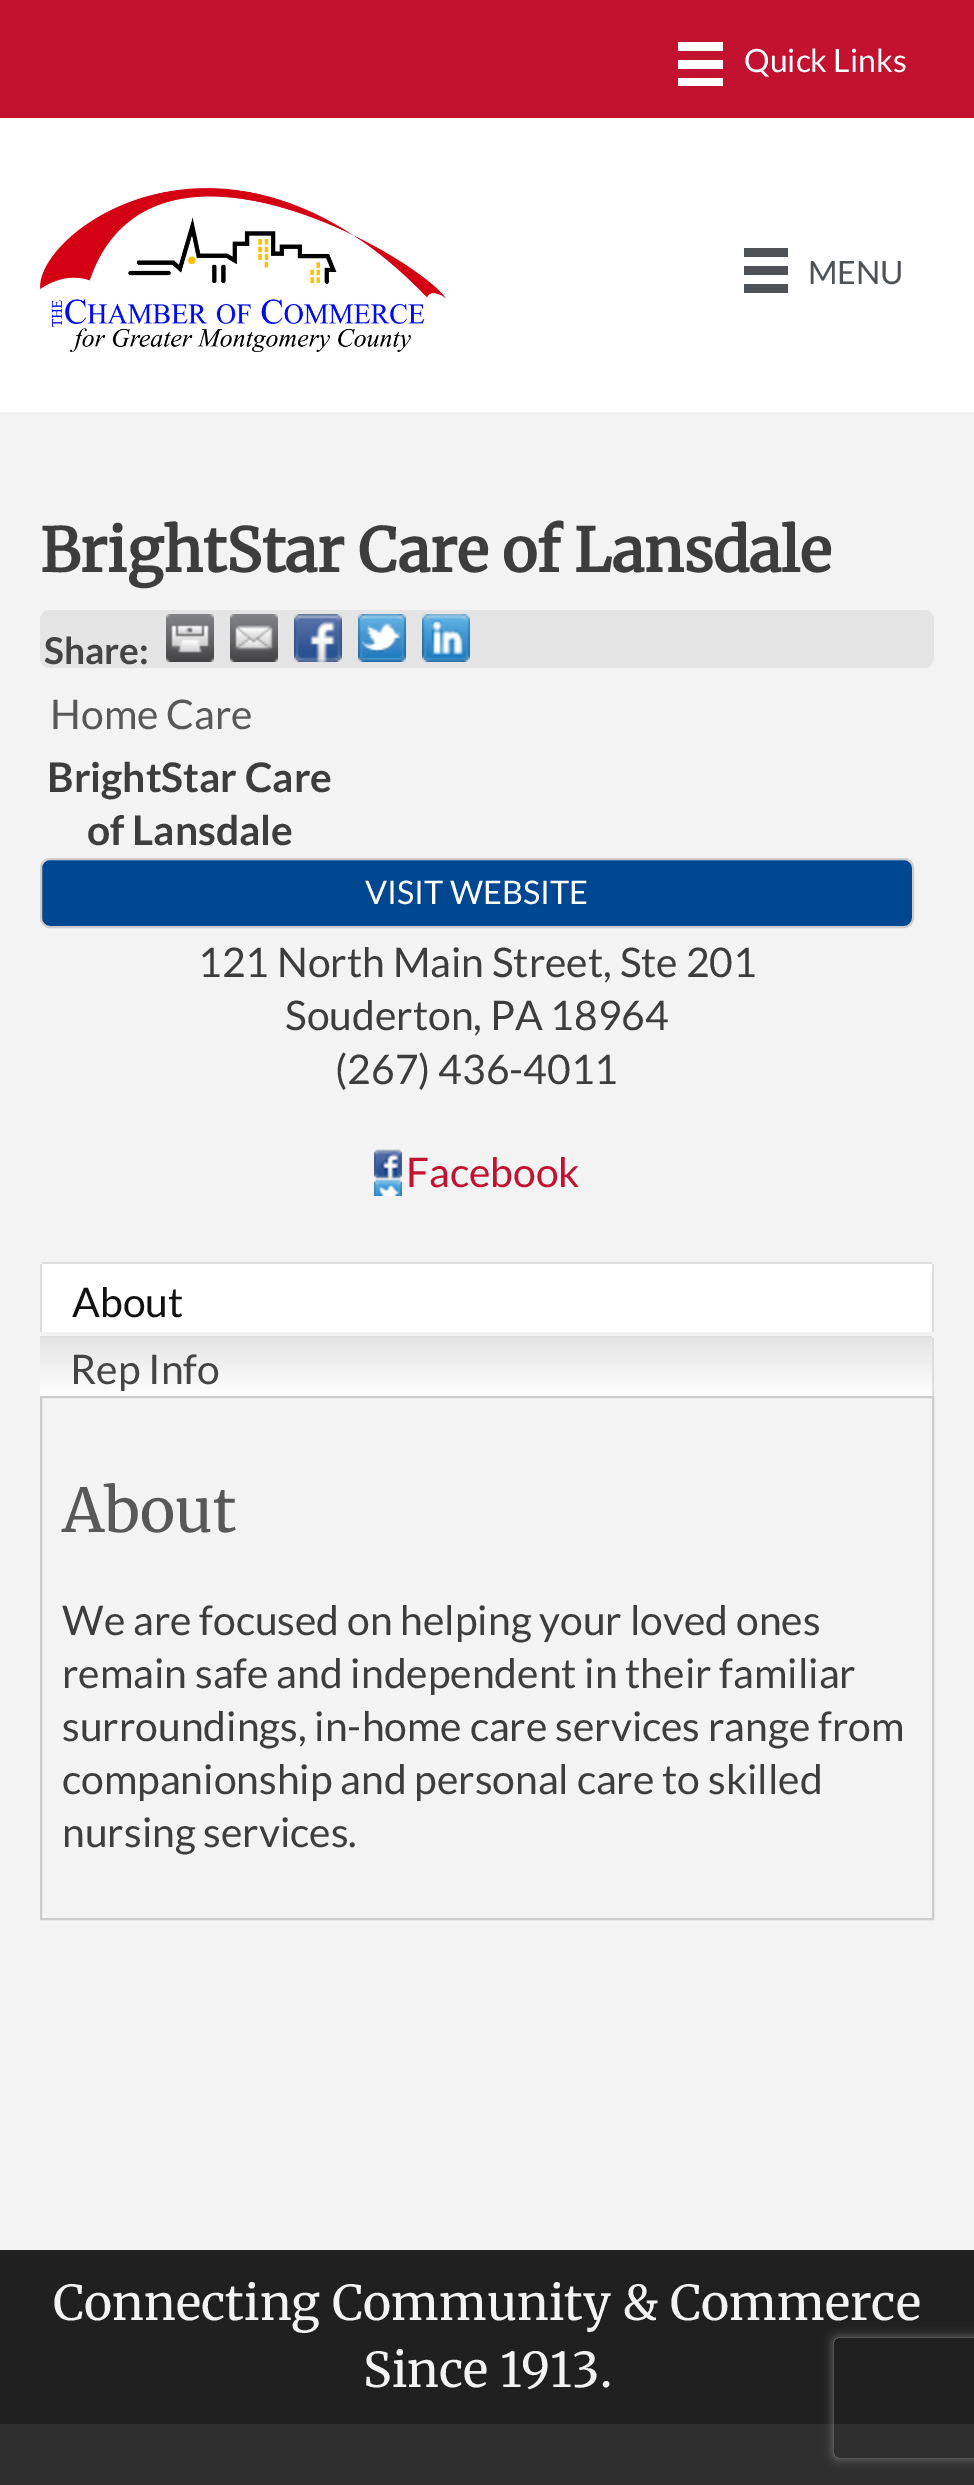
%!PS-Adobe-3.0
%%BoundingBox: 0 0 974 2485
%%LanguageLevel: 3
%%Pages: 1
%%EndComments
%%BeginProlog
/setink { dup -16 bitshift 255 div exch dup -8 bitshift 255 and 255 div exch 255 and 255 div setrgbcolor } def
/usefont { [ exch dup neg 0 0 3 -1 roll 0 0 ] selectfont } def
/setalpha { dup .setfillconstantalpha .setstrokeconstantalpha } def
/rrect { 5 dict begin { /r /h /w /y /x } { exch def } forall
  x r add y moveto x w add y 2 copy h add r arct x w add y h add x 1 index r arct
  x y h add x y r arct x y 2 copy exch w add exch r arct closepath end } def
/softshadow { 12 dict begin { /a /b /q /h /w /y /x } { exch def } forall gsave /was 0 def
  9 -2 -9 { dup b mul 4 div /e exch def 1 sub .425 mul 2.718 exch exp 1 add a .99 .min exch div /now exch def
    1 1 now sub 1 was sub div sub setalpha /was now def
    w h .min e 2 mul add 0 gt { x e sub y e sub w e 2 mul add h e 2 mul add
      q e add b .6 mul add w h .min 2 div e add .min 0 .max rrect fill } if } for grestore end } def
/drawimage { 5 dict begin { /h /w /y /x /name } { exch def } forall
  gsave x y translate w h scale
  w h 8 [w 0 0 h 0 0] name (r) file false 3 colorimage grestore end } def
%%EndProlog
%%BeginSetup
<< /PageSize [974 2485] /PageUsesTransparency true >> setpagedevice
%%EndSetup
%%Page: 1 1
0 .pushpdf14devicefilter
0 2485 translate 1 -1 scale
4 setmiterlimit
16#FFFFFF setink
0 0 974 2485 rectfill
[
    [0 0 974 118 16#C3122F]
    [678 42 45 9 16#FFFFFF]
    [678 60 45 9 16#FFFFFF]
    [678 78 45 8 16#FFFFFF]
] { aload pop setink rectfill } forall
/Lato-Regular 32 usefont
744 72 moveto (Quick Links) show
(img1.raw) 40 188 406 164 drawimage
[
    [744 248 44 9 16#4C5256]
    [744 266 44 9 16#4C5256]
    [744 284 44 9 16#4C5256]
] { aload pop setink rectfill } forall
808 284 moveto (MENU) show
16#F3F3F3 setink
0 412 974 1838 rectfill
/Merriweather-Bold 60 usefont
16#3D3D3D setink
40 572 moveto (BrightStar Care of Lansdale) show
16#E4E4E4 setink
40 610 894 58 10 rrect fill
/Lato-Bold 37 usefont
16#444444 setink
44 664 moveto (Share:) show
(img2.raw) 166 614 48 48 drawimage
(img3.raw) 230 614 48 48 drawimage
(img4.raw) 294 614 48 48 drawimage
(img5.raw) 358 614 48 48 drawimage
(img6.raw) 422 614 48 48 drawimage
/Lato-Regular 40.8 usefont
16#585858 setink
50 729 moveto (Home Care) show
/Lato-Bold 40.8 usefont
16#3D3D3D setink
47 792 moveto (BrightStar Care) show
87 845 moveto (of Lansdale) show
16#004792 setink
41 859 872 68 9 rrect gsave fill grestore
16#CCCCCC setink
2 setlinewidth
stroke
/Lato-Regular 32.5 usefont
16#FFFFFF setink
365 904 moveto (VISIT WEBSITE) show
/Lato-Regular 40.8 usefont
16#3D3D3D setink
[
    [(121 North Main Street, Ste 201) 198 977]
    [(Souderton, PA 18964) 285 1030]
    [(\(267\) 436-4011) 335 1084]
] { aload pop moveto show } forall
(img7.raw) 374 1149 28 47 drawimage
16#C3122F setink
406 1187 moveto (Facebook) show
16#FFFFFF setink
44 1264 moveto 930 1264 lineto 931 1264 932 1265 932 1266 curveto 932 1332 lineto 42 1332 lineto 42 1266 lineto 42 1265 43 1264 44 1264 curveto closepath fill
[
    [42 1262 890 2 16#DDDDDD]
    [932 1264 2 68 16#DDDDDD]
    [40 1264 2 68 16#DDDDDD]
] { aload pop setink rectfill } forall
16#111111 setink
72 1317 moveto (About) show
gsave 40 1338 moveto 930 1338 lineto 931 1338 932 1339 932 1340 curveto 932 1396 lineto 40 1396 lineto closepath clip newpath
<< /ShadingType 2 /ColorSpace /DeviceRGB /Coords [486 1338 486 1396] /Extend [true true] /Function << /FunctionType 2 /Domain [0 1] /C0 [0.894 0.894 0.894] /C1 [1 1 1] /N 1 >> >> shfill grestore
16#DDDDDD setink
40 1336 892 2 rectfill
932 1338 2 58 rectfill
16#444444 setink
70 1384 moveto (Rep Info) show
16#CCCCCC setink
41 1397 892 522 rectstroke
/Merriweather-Regular 60 usefont
16#585858 setink
62 1532 moveto (About) show
/Lato-Regular 40.8 usefont
16#3D3D3D setink
[
    [(We are focused on helping your loved ones) 62 1635]
    [(remain safe and independent in their familiar) 62 1688]
    [(surroundings, in-home care services range from) 62 1741]
    [(companionship and personal care to skilled) 62 1794]
    [(nursing services.) 62 1847]
] { aload pop moveto show } forall
16#202020 setink
0 2250 974 174 rectfill
/Merriweather-Regular 48 usefont
16#F3F3F3 setink
53 2320 moveto (Connecting Community & Commerce) show
363 2387 moveto (Since 1913.) show
16#2F2F2F setink
0 2424 974 61 rectfill
gsave
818 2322 moveto 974 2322 lineto 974 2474 lineto 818 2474 lineto closepath 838 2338 moveto 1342 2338 lineto 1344 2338 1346 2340 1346 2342 curveto 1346 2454 lineto 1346 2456 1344 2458 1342 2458 curveto 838 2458 lineto 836 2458 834 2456 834 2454 curveto 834 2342 lineto 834 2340 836 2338 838 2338 curveto closepath eoclip newpath
16#808080 setink
834 2338 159 120 4 5 1 softshadow
grestore
.poppdf14devicefilter showpage
%%EOF
